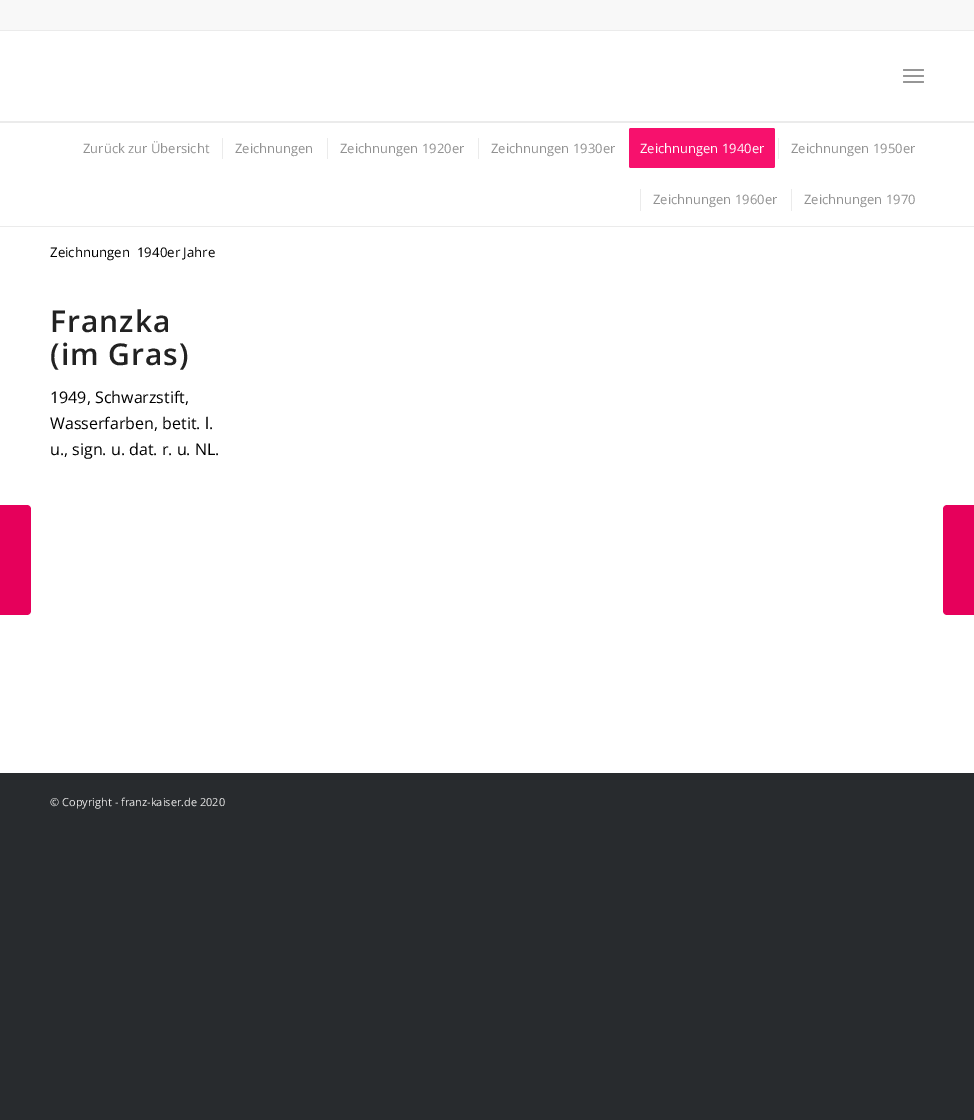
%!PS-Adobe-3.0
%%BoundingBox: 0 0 974 1120
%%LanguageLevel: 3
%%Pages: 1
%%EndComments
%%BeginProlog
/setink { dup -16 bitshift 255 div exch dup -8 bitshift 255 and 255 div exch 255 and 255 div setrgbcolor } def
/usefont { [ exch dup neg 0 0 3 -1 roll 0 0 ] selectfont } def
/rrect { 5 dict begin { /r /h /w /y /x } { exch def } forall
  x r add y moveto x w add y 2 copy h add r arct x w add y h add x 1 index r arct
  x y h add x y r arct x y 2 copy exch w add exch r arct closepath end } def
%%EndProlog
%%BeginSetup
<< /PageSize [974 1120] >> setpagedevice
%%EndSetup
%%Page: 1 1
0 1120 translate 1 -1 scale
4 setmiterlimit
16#282B2E setink
0 0 974 1120 rectfill
[
    [0 0 974 30 16#F8F8F8]
    [0 30 974 1 16#EBEBEB]
    [0 31 974 90 16#FFFFFF]
] { aload pop setink rectfill } forall
16#969696 setink
903 75 21 2 1 rrect fill
903 69 21 2 1 rrect fill
903 81 21 2 1 rrect fill
16#FFFFFF setink
0 227 974 546 rectfill
16#E6005B setink
0 505 moveto 27 505 lineto 29 505 31 507 31 509 curveto 31 611 lineto 31 613 29 615 27 615 curveto 0 615 lineto closepath fill
[
    [0 123 974 103 16#FFFFFF]
    [0 121 974 2 16#EBEBEB]
    [0 226 974 1 16#EBEBEB]
] { aload pop setink rectfill } forall
/OpenSans-Regular 13 usefont
16#919191 setink
83 153 moveto (Zurück zur Übersicht) show
16#EBEBEB setink
222 138 1 21 rectfill
16#919191 setink
235 153 moveto (Zeichnungen) show
16#EBEBEB setink
327 138 1 21 rectfill
16#919191 setink
340 153 moveto (Zeichnungen 1920er) show
16#EBEBEB setink
478 138 1 21 rectfill
16#919191 setink
491 153 moveto (Zeichnungen 1930er) show
16#F7116D setink
629 128 146 40 2 rrect fill
16#FFFFFF setink
640 153 moveto (Zeichnungen 1940er) show
16#EBEBEB setink
778 138 1 21 rectfill
16#919191 setink
791 153 moveto (Zeichnungen 1950er) show
16#EBEBEB setink
640 189 1 22 rectfill
16#919191 setink
653 204 moveto (Zeichnungen 1960er) show
16#EBEBEB setink
791 189 1 22 rectfill
16#919191 setink
804 204 moveto (Zeichnungen 1970) show
/OpenSans-Regular 13.25 usefont
16#000000 setink
50 257 moveto (Zeichnungen  1940er Jahre) show
/OpenSans-SemiBold 30 usefont
16#222222 setink
50 332 moveto 1 0 (Franzka) ashow
50 365 moveto 1 0 (\(im Gras\)) ashow
/OpenSans-Regular 16 usefont
16#000000 setink
[
    [(1949, Schwarzstift,) 50 403]
    [(Wasserfarben, betit. l.) 50 429]
    [(u., sign. u. dat. r. u. NL.) 50 455]
] { aload pop moveto show } forall
/OpenSans-Regular 11 usefont
16#E8E8E8 setink
50 806 moveto (© Copyright - franz-kaiser.de 2020) show
16#E6005B setink
947 505 moveto 974 505 lineto 974 615 lineto 947 615 lineto 945 615 943 613 943 611 curveto 943 509 lineto 943 507 945 505 947 505 curveto closepath fill
showpage
%%EOF
